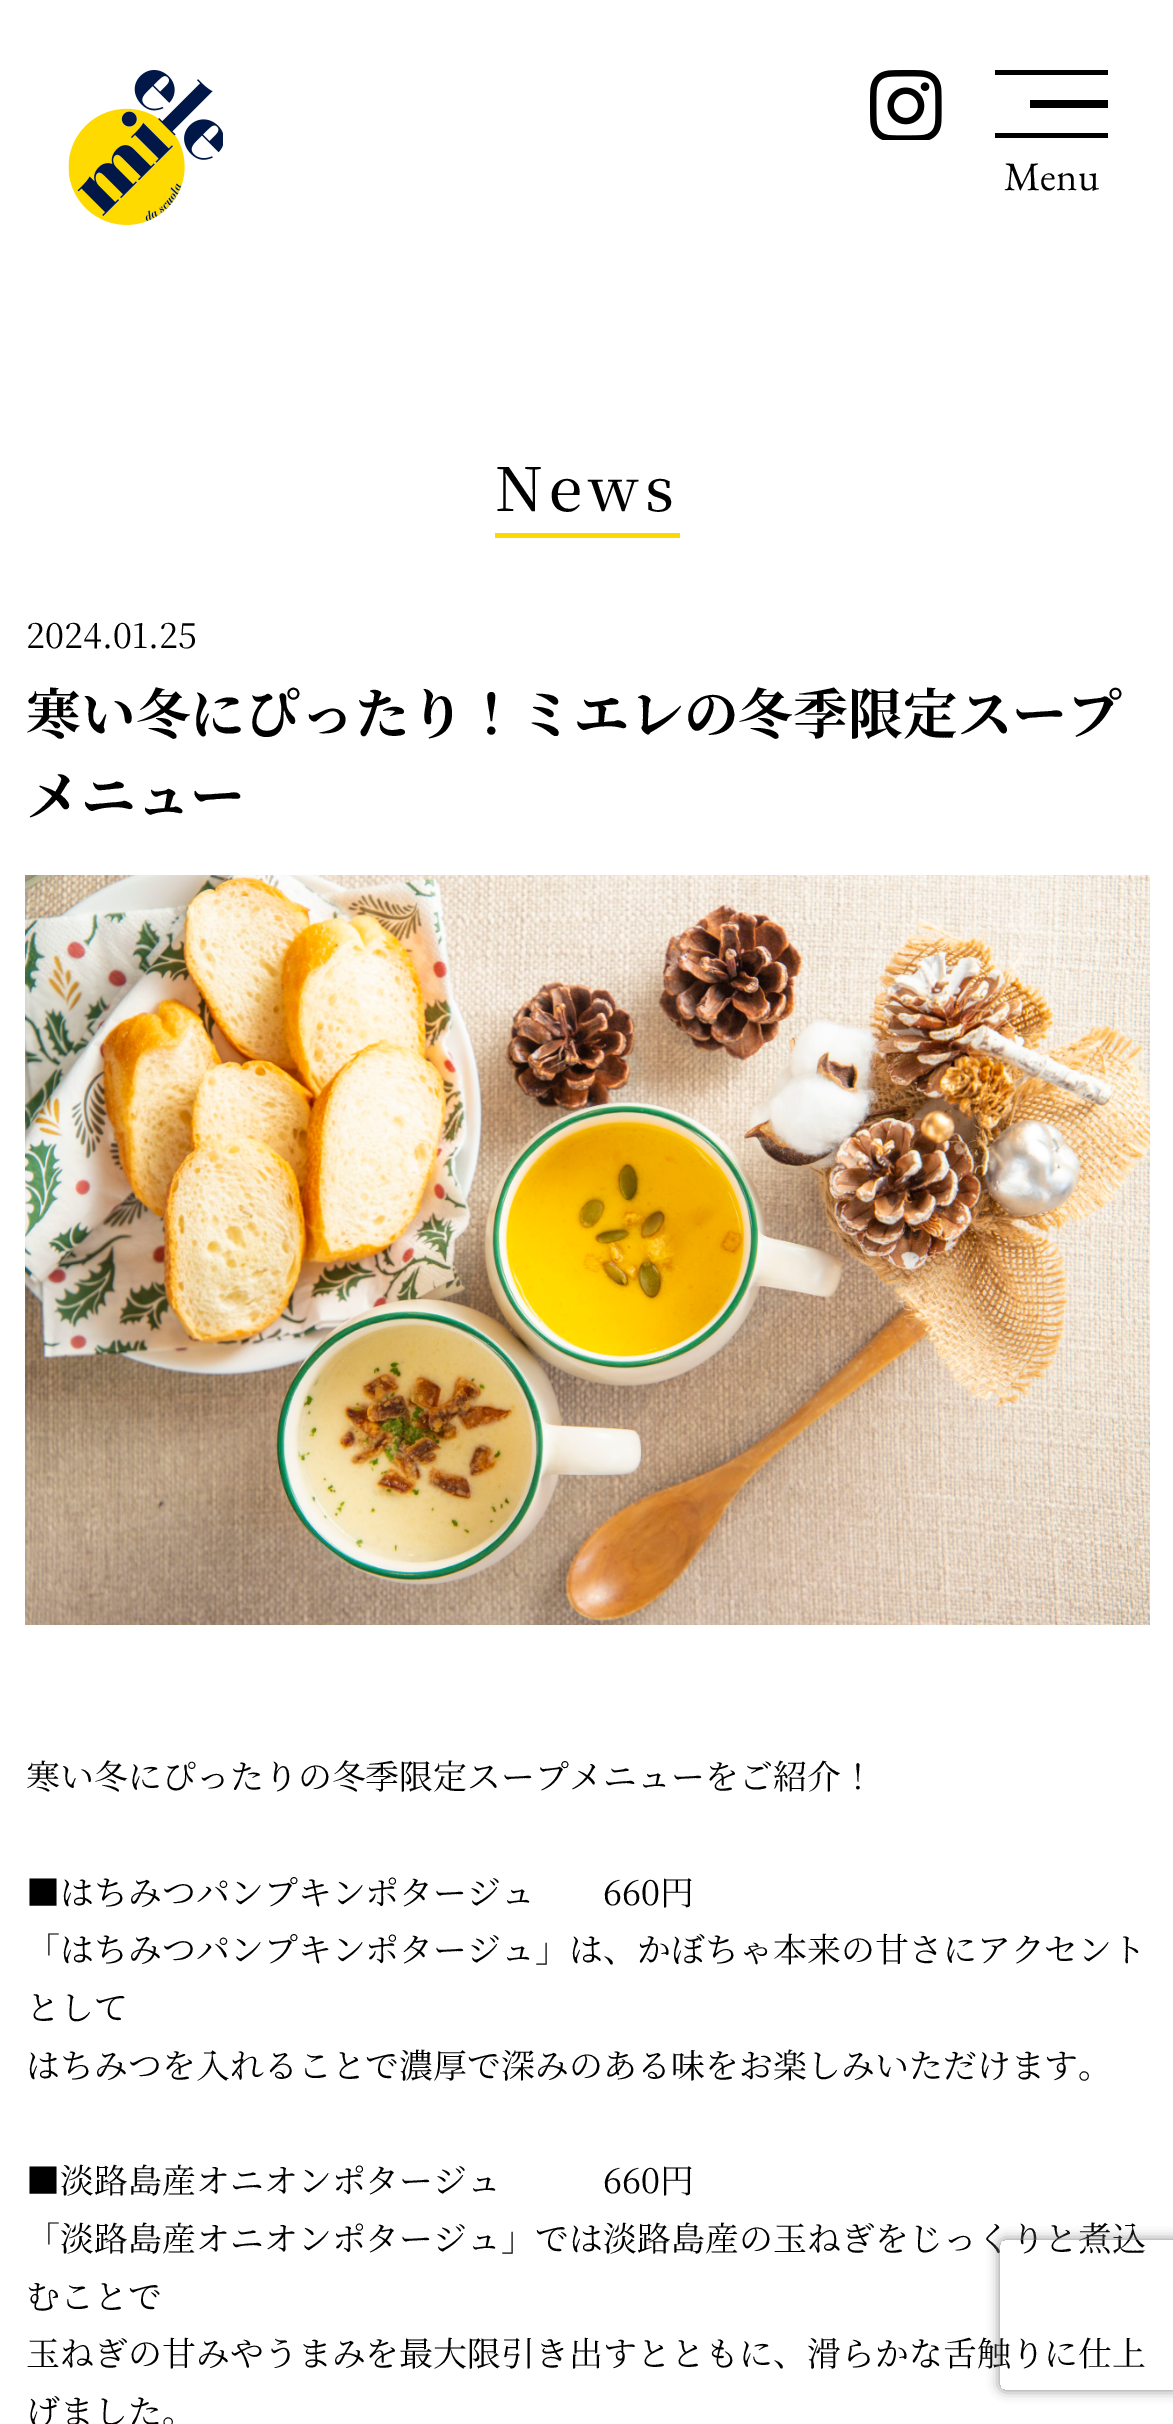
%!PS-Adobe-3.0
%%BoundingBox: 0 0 1173 2424
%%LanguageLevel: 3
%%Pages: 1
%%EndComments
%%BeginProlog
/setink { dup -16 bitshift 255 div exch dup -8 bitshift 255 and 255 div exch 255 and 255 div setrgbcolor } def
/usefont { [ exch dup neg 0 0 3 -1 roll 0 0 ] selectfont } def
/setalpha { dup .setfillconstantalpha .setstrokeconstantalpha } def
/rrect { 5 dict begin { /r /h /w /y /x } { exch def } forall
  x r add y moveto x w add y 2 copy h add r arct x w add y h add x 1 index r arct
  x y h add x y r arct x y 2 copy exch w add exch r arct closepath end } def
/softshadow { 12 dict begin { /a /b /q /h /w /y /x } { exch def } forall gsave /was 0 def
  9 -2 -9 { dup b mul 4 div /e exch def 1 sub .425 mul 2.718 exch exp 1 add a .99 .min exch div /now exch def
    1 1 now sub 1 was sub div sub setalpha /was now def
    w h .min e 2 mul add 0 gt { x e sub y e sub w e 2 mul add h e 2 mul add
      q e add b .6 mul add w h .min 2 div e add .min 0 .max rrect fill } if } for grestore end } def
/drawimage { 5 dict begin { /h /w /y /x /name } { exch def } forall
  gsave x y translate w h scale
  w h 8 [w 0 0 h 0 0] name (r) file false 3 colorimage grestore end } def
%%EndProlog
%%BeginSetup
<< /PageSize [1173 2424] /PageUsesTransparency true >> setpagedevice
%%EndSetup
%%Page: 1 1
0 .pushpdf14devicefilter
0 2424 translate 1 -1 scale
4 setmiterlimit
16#FFFFFF setink
0 0 1173 2424 rectfill
(img1.raw) 68 70 155 155 drawimage
(img2.raw) 870 70 72 70 drawimage
[
    [995 70 113 5 16#000000]
    [1030 100 78 8 16#000000]
    [995 133 113 5 16#000000]
] { aload pop setink rectfill } forall
/EBGaramond-Regular 40.5 usefont
1004 190 moveto (Menu) show
/NotoSerifJP-Medium 60 usefont
495 511 moveto 6 0 (News) ashow
16#FED901 setink
495 533 185 5 rectfill
/NotoSerifJP-Regular 33.95 usefont
16#000000 setink
26 648 moveto (2024.01.25) show
/NotoSerifJP-Bold 54.8 usefont
26 734 moveto (寒い冬にぴったり！ミエレの冬季限定スープ) show
26 816 moveto (メニュー) show
(img3.raw) 25 875 1125 750 drawimage
/NotoSerifJP-Regular 33.95 usefont
[
    [(寒い冬にぴったりの冬季限定スープメニューをご紹介！) 26 1789]
    [(■はちみつパンプキンポタージュ　　660円) 26 1905]
    [(「はちみつパンプキンポタージュ」は、かぼちゃ本来の甘さにアクセント) 26 1962]
    [(として) 26 2020]
    [(はちみつを入れることで濃厚で深みのある味をお楽しみいただけます。) 26 2078]
    [(■淡路島産オニオンポタージュ　　　660円) 26 2193]
    [(「淡路島産オニオンポタージュ」では淡路島産の玉ねぎをじっくりと煮込) 26 2251]
    [(むことで) 26 2309]
    [(玉ねぎの甘みやうまみを最大限引き出すとともに、滑らかな舌触りに仕上) 26 2366]
    [(げました。) 26 2424]
] { aload pop moveto show } forall
gsave
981 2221 moveto 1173 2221 lineto 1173 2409 lineto 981 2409 lineto closepath 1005 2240 moveto 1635 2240 lineto 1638 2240 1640 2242 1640 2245 curveto 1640 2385 lineto 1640 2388 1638 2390 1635 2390 curveto 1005 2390 lineto 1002 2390 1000 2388 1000 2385 curveto 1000 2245 lineto 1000 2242 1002 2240 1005 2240 curveto closepath eoclip newpath
16#808080 setink
1000 2240 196 150 5 6 1 softshadow
grestore
.poppdf14devicefilter showpage
%%EOF
